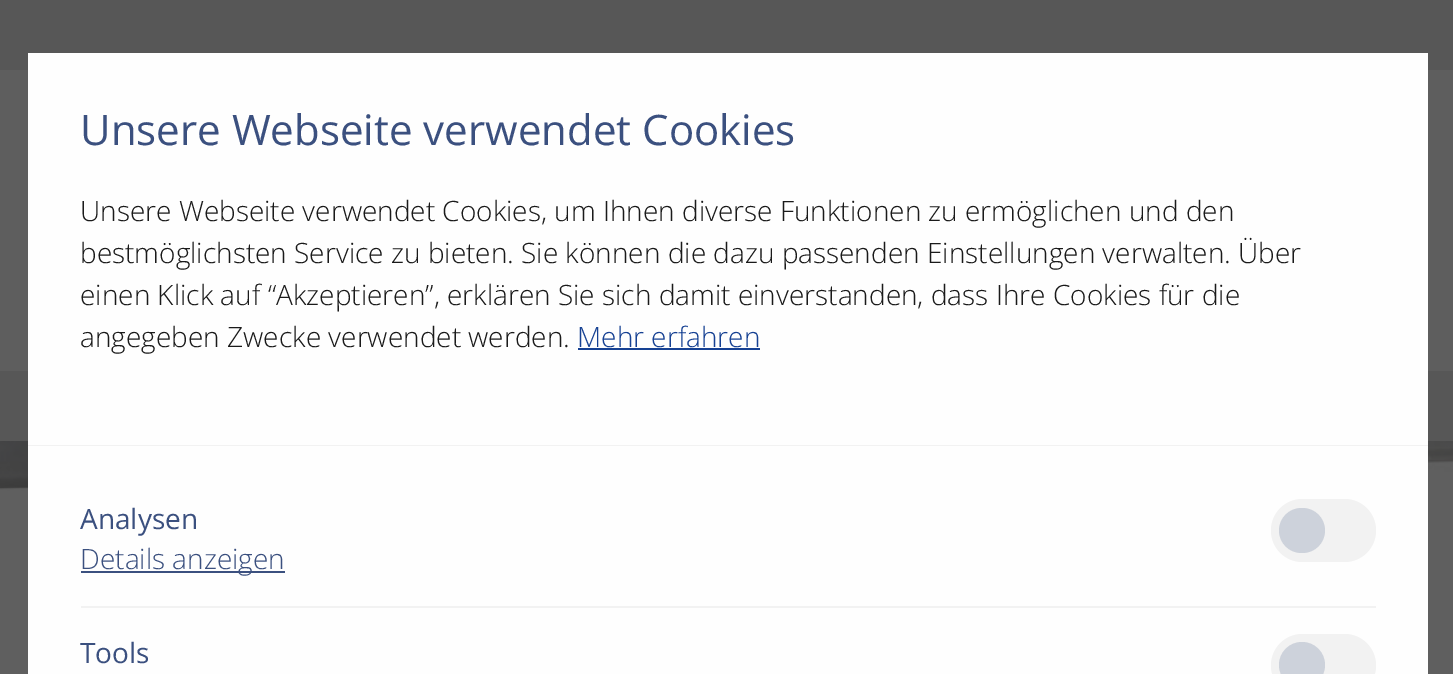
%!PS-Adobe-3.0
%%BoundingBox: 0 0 1453 674
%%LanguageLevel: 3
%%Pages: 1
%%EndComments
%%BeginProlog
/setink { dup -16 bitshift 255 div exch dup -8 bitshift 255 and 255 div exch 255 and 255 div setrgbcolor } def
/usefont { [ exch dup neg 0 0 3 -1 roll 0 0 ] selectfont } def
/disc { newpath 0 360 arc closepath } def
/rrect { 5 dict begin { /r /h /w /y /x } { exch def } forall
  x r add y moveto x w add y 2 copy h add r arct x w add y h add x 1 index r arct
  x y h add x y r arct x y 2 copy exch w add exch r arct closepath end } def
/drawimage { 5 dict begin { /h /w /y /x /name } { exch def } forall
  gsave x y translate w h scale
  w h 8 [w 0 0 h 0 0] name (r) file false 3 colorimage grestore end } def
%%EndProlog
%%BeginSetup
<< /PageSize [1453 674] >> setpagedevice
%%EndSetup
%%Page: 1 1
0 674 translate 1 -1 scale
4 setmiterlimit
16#575757 setink
0 0 1453 674 rectfill
16#5E5E5E setink
0 70 1453 301 rectfill
(img1.raw) 0 441 1453 233 drawimage
16#FEFEFE setink
28 53 1400 392 rectfill
16#F2F2F2 setink
28 445 1400 1 rectfill
/OpenSans-Regular 42 usefont
16#3B507F setink
80 145 moveto (Unsere Webseite verwendet Cookies) show
/OpenSans-Light 28 usefont
16#1A1A1A setink
[
    [(Unsere Webseite verwendet Cookies, um Ihnen diverse Funktionen zu ermöglichen und den) 80 221]
    [(bestmöglichsten Service zu bieten. Sie können die dazu passenden Einstellungen verwalten. Über) 80 263]
    [(einen Klick auf “Akzeptieren”, erklären Sie sich damit einverstanden, dass Ihre Cookies für die) 80 305]
    [(angegeben Zwecke verwendet werden.) 80 347]
] { aload pop moveto show } forall
16#164193 setink
577 347 moveto (Mehr erfahren) show
[
    [578 348 182 2 16#164193]
    [28 446 1400 228 16#FEFEFE]
    [81 606 1295 2 16#F2F2F2]
] { aload pop setink rectfill } forall
/OpenSans-Regular 28 usefont
16#3B507F setink
80 529 moveto (Analysen) show
81 571 204 2 rectfill
/OpenSans-Light 28 usefont
80 569 moveto (Details anzeigen) show
16#F2F2F2 setink
1271 499 105 63 31.5 rrect fill
16#CDD2DB setink
1279 508 46 45 22.5 rrect fill
/OpenSans-Regular 28 usefont
16#3B507F setink
80 663 moveto (Tools) show
16#F2F2F2 setink
1271 634 105 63 31.5 rrect fill
16#CDD2DB setink
1302 665 23 disc fill
showpage
%%EOF
